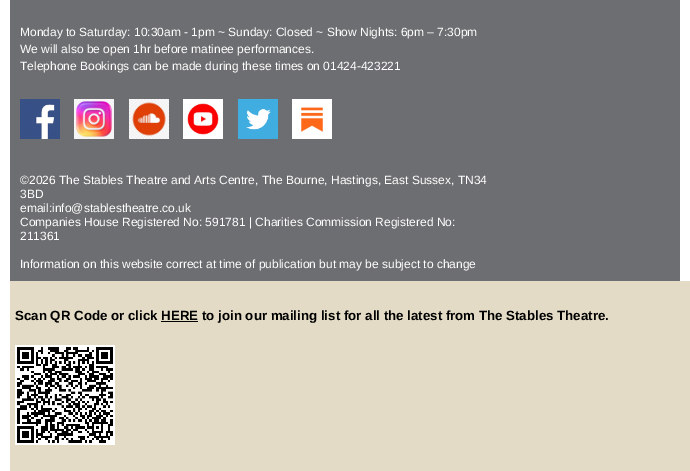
%!PS-Adobe-3.0
%%BoundingBox: 0 0 690 471
%%LanguageLevel: 3
%%Pages: 1
%%EndComments
%%BeginProlog
/setink { dup -16 bitshift 255 div exch dup -8 bitshift 255 and 255 div exch 255 and 255 div setrgbcolor } def
/usefont { [ exch dup neg 0 0 3 -1 roll 0 0 ] selectfont } def
/drawimage { 5 dict begin { /h /w /y /x /name } { exch def } forall
  gsave x y translate w h scale
  w h 8 [w 0 0 h 0 0] name (r) file false 3 colorimage grestore end } def
%%EndProlog
%%BeginSetup
<< /PageSize [690 471] >> setpagedevice
%%EndSetup
%%Page: 1 1
0 471 translate 1 -1 scale
4 setmiterlimit
16#FFFFFF setink
0 0 690 471 rectfill
16#6D6E71 setink
10 0 670 281 rectfill
/LiberationSans-Regular 12 usefont
16#FFFFFF setink
[
    [(Monday to Saturday: 10:30am - 1pm ~ Sunday: Closed ~ Show Nights: 6pm – 7:30pm) 20 36]
    [(We will also be open 1hr before matinee performances.) 20 53]
    [(Telephone Bookings can be made during these times on 01424-423221) 20 70]
] { aload pop moveto show } forall
(img1.raw) 20 99 40 40 drawimage
(img2.raw) 74 99 40 40 drawimage
(img3.raw) 129 99 40 40 drawimage
(img4.raw) 183 99 40 40 drawimage
(img5.raw) 238 99 40 40 drawimage
(img6.raw) 292 99 40 40 drawimage
[
    [(©2026 The Stables Theatre and Arts Centre, The Bourne, Hastings, East Sussex, TN34) 20 184]
    [(3BD) 20 198]
    [(email:info@stablestheatre.co.uk) 20 212]
    [(Companies House Registered No: 591781 | Charities Commission Registered No:) 20 226]
    [(211361) 20 240]
    [(Information on this website correct at time of publication but may be subject to change) 20 268]
] { aload pop moveto show } forall
16#E3DBC5 setink
10 281 680 190 rectfill
/LiberationSans-Bold 13.3 usefont
16#000000 setink
15 320 moveto (Scan QR Code or click HERE to join our mailing list for all the latest from The Stables Theatre.) show
161 321 37 1 rectfill
(img7.raw) 15 345 100 100 drawimage
showpage
%%EOF
